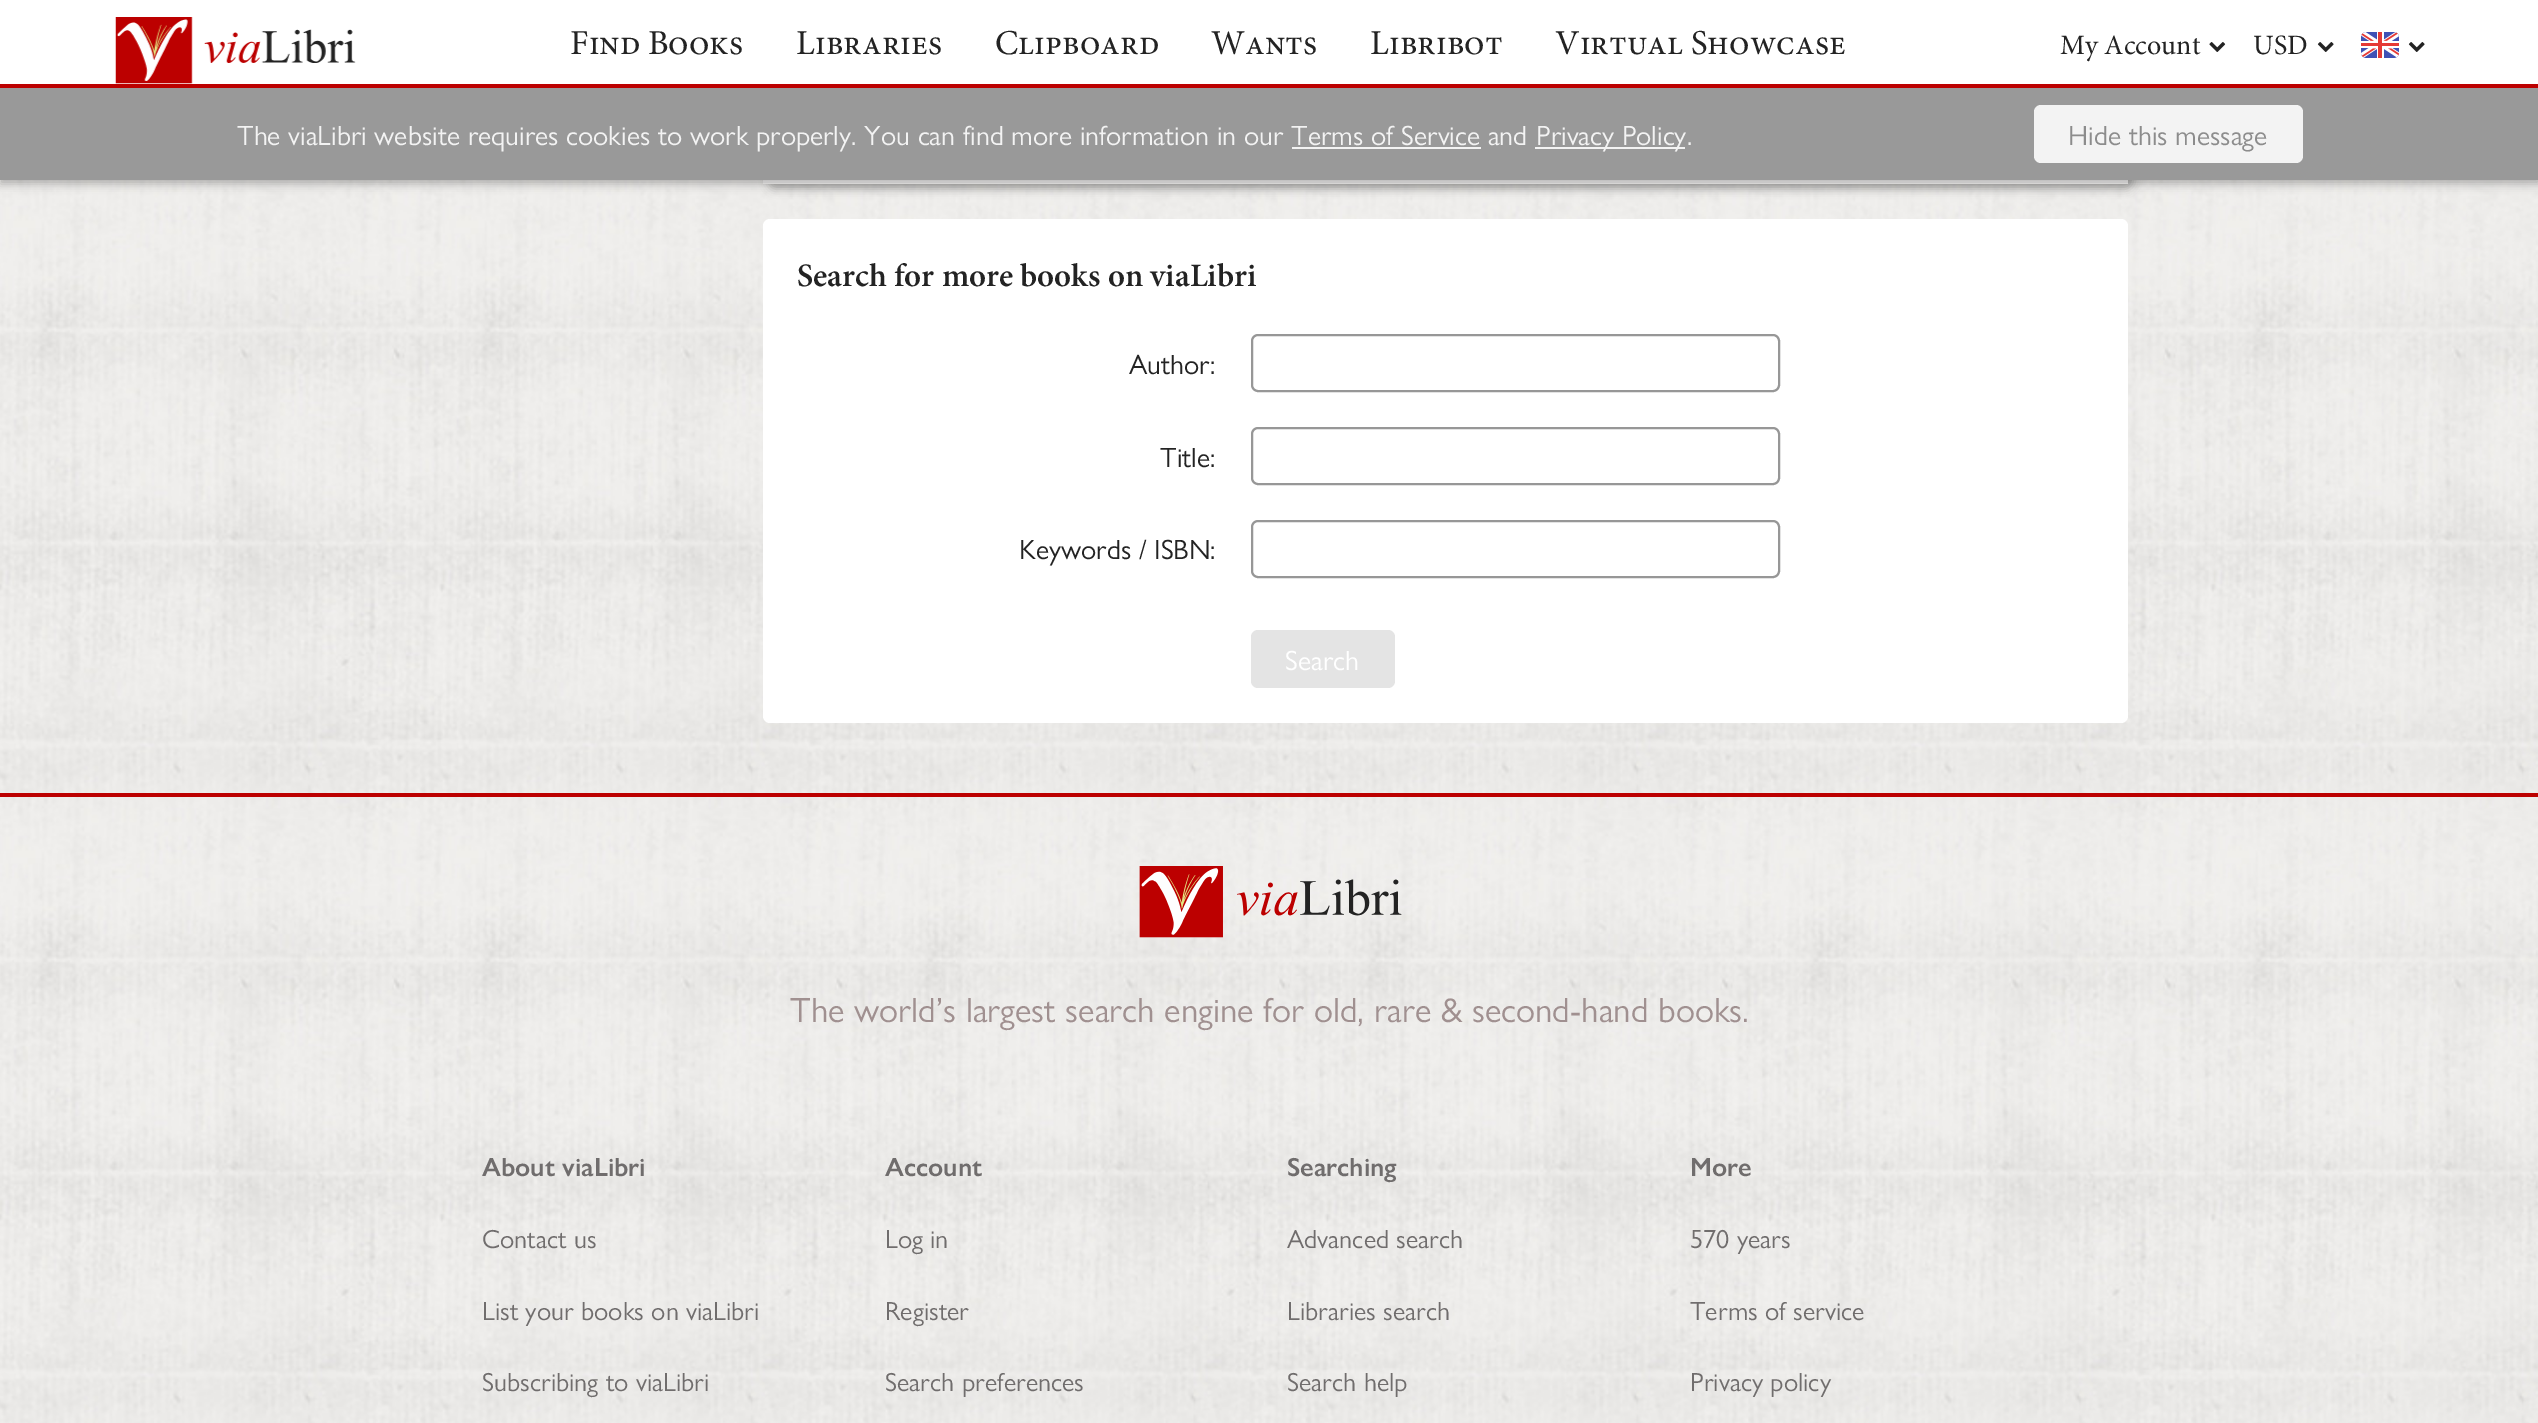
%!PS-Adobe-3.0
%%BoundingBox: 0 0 2538 1423
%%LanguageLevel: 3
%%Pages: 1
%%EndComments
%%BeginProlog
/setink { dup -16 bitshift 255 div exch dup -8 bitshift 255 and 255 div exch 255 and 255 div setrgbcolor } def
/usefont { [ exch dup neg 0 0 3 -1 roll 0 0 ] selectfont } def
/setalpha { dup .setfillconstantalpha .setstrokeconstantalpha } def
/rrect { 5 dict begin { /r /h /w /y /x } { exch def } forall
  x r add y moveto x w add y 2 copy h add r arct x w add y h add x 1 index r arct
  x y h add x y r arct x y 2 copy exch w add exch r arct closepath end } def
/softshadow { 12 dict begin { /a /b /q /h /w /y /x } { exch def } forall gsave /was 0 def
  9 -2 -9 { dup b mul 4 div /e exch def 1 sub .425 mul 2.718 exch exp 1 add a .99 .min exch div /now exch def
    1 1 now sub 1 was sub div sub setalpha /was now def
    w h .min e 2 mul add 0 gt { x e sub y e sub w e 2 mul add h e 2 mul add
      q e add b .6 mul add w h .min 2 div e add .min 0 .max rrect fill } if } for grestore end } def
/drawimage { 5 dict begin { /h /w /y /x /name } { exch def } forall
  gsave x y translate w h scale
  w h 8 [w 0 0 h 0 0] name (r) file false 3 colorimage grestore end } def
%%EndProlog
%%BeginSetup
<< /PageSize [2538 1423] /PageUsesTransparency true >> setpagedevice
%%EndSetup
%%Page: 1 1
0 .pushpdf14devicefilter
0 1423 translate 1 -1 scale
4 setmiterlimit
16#FFFFFF setink
0 0 2538 1423 rectfill
(img1.raw) 0 180 2538 1243 drawimage
16#000000 setink
768 -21 1365 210 7 4.5 0.25 softshadow
16#F5F4F3 setink
763 180 1365 4 rectfill
16#000000 setink
0 4 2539 180 0 4.5 0.25 softshadow
16#FFFFFF setink
0 0 2538 84 rectfill
16#BC0000 setink
0 84 2538 4 rectfill
(img2.raw) 115 17 241 67 drawimage
/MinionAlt-Regular 35 usefont
16#232323 setink
[
    [(Find Books) 570 54]
    [(Libraries) 796 54]
    [(Clipboard) 995 54]
    [(Wants) 1211 54]
    [(Libribot) 1370 54]
    [(Virtual Showcase) 1555 54]
] { aload pop moveto show } forall
/Minion-Regular 28 usefont
2060 54 moveto (My Account) show
(img3.raw) 2209 42 17 10 drawimage
2253 54 moveto (USD) show
(img4.raw) 2317 42 17 10 drawimage
(img5.raw) 2361 32 38 26 drawimage
(img4.raw) 2408 42 17 10 drawimage
16#999999 setink
0 88 2538 92 rectfill
/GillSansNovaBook-Regular 28 usefont
16#F3F3F3 setink
237 145 moveto (The viaLibri website requires cookies to work properly. You can find more information in our Terms of Service and) show
1292 147 189 2 rectfill
1535 147 150 2 rectfill
1536 145 moveto (Privacy Policy.) show
2034 105 269 58 7 rrect fill
16#8C8C8C setink
2068 145 moveto (Hide this message) show
16#FFFFFF setink
763 219 1365 504 7 rrect fill
/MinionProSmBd-SemiBold 32.75 usefont
16#232323 setink
797 286 moveto (Search for more books on viaLibri) show
/GillSansNovaBook-Regular 28 usefont
1129 374 moveto (Author:) show
16#979797 setink
2 setlinewidth
1252 335 527 56 6 rrect stroke
16#232323 setink
1160 467 moveto (Title:) show
16#979797 setink
1252 428 527 56 6 rrect stroke
16#232323 setink
1019 559 moveto (Keywords / ISBN:) show
16#979797 setink
1252 521 527 56 6 rrect stroke
16#E4E4E4 setink
1251 630 144 58 7 rrect fill
16#FFFFFF setink
1285 670 moveto (Search) show
16#BC0000 setink
0 793 2538 4 rectfill
(img6.raw) 1139 866 263 72 drawimage
/GillSansNovaBook-Regular 35 usefont
16#A09090 setink
790 1022 moveto (The world’s largest search engine for old, rare & second-hand books.) show
/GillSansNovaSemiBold-SemiBold 26.25 usefont
16#706D6D setink
482 1176 moveto (About viaLibri) show
/GillSansNovaBook-Regular 26.25 usefont
[
    [(Contact us) 482 1248]
    [(List your books on viaLibri) 482 1320]
    [(Subscribing to viaLibri) 482 1391]
] { aload pop moveto show } forall
/GillSansNovaSemiBold-SemiBold 26.25 usefont
885 1176 moveto (Account) show
/GillSansNovaBook-Regular 26.25 usefont
[
    [(Log in) 885 1248]
    [(Register) 885 1320]
    [(Search preferences) 885 1391]
] { aload pop moveto show } forall
/GillSansNovaSemiBold-SemiBold 26.25 usefont
1287 1176 moveto (Searching) show
/GillSansNovaBook-Regular 26.25 usefont
[
    [(Advanced search) 1287 1248]
    [(Libraries search) 1287 1320]
    [(Search help) 1287 1391]
] { aload pop moveto show } forall
/GillSansNovaSemiBold-SemiBold 26.25 usefont
1690 1176 moveto (More) show
/GillSansNovaBook-Regular 26.25 usefont
[
    [(570 years) 1690 1248]
    [(Terms of service) 1690 1320]
    [(Privacy policy) 1690 1391]
] { aload pop moveto show } forall
.poppdf14devicefilter showpage
%%EOF
